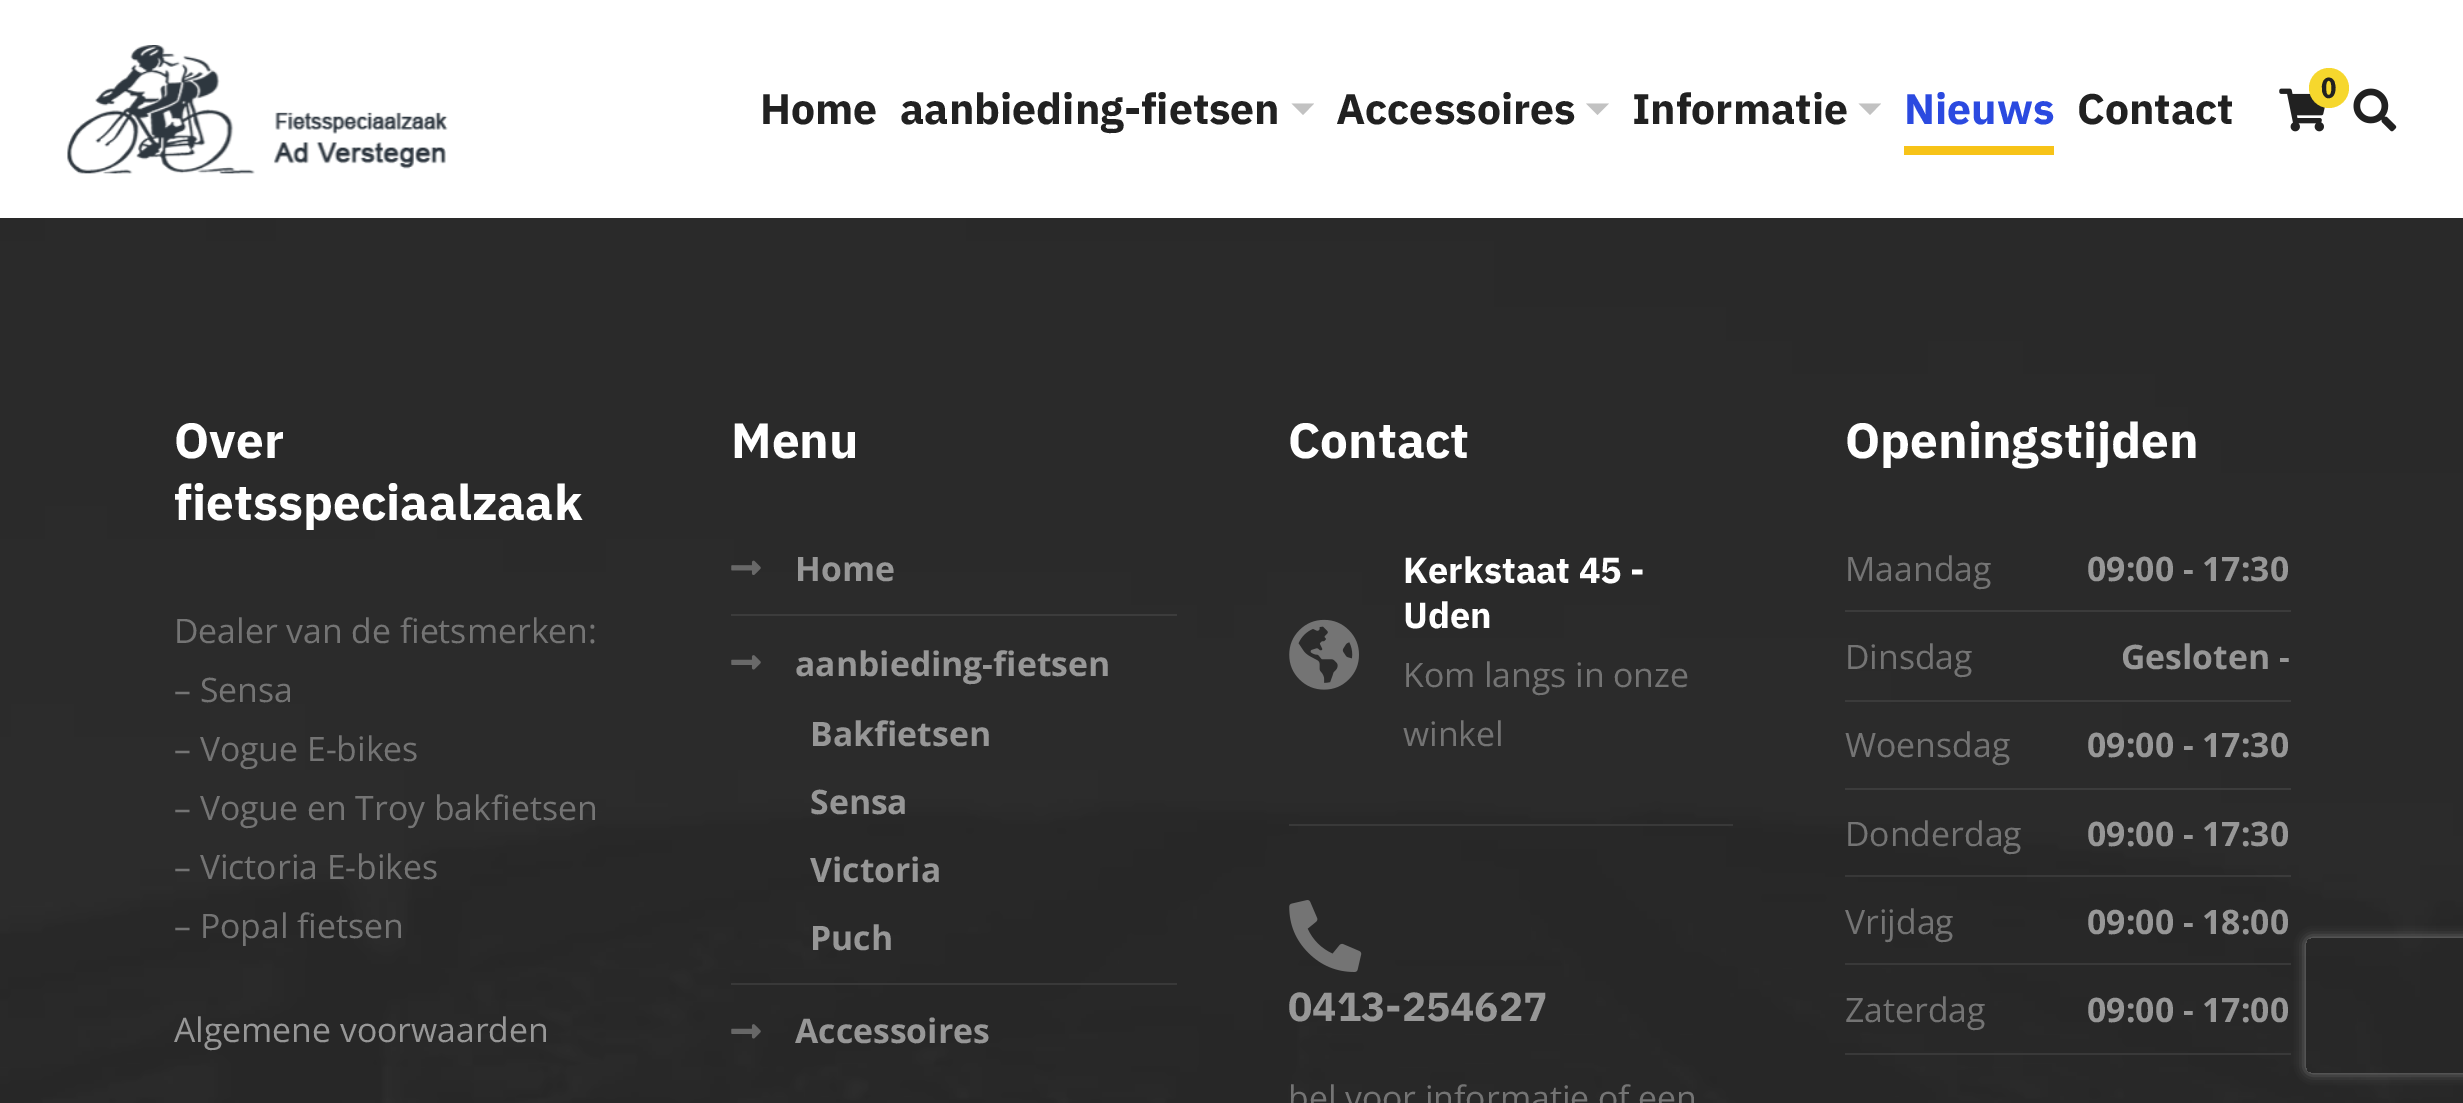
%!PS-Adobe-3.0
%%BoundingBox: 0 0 2463 1103
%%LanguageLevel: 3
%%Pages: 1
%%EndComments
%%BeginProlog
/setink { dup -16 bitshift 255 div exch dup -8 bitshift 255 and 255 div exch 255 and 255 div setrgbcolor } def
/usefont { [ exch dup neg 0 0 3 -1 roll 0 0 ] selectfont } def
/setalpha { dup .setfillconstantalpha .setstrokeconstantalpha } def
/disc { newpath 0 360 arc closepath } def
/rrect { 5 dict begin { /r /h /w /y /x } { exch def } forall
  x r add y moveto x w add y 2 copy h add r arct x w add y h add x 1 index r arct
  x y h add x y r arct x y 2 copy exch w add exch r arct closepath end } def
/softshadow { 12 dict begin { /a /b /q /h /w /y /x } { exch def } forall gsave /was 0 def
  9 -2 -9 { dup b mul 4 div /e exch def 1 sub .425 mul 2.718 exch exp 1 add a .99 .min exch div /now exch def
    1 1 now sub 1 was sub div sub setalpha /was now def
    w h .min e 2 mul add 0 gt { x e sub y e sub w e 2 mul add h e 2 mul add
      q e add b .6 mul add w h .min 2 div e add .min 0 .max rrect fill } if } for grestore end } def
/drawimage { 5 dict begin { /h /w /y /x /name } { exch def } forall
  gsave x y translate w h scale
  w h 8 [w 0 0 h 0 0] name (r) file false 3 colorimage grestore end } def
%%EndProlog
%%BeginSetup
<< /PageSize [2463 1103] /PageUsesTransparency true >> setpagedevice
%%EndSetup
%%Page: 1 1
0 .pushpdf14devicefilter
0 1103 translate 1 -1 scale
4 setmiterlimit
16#343434 setink
0 0 2463 1103 rectfill
16#FFFFFF setink
0 0 2463 218 rectfill
(img1.raw) 67 45 381 129 drawimage
(img2.raw) 2279 88 46 44 drawimage
16#F6D72D setink
2329 88 20 disc fill
/Asap-Bold 29 usefont
16#212121 setink
2321 98 moveto (0) show
(img3.raw) 2353 88 44 44 drawimage
/IBMPlexSans-Bold 42.75 usefont
760 124 moveto (Home) show
900 124 moveto (aanbieding-fietsen) show
16#C2C2C2 setink
1291.5 103.5 moveto 1314 103.5 lineto 1303 115 lineto closepath fill
16#212121 setink
1336 124 moveto (Accessoires) show
16#C2C2C2 setink
1586 103.5 moveto 1609 103.5 lineto 1597.5 115 lineto closepath fill
16#212121 setink
1632 124 moveto (Informatie) show
16#C2C2C2 setink
1858.5 103.5 moveto 1881 103.5 lineto 1870 115 lineto closepath fill
16#2B4AE0 setink
1904 124 moveto (Nieuws) show
16#F7C318 setink
1904 146 150 9 rectfill
16#212121 setink
2077 124 moveto (Contact) show
(img4.raw) 0 218 2463 885 drawimage
/IBMPlexSans-Bold 49.5 usefont
16#FFFFFF setink
174 458 moveto (Over) show
174 520 moveto (fietsspeciaalzaak) show
/OpenSans-Regular 33.75 usefont
16#747474 setink
[
    [(Dealer van de fietsmerken:) 174 643]
    [(– Sensa) 174 702]
    [(– Vogue E-bikes) 174 761]
    [(– Vogue en Troy bakfietsen) 174 820]
    [(– Victoria E-bikes) 174 879]
    [(– Popal fietsen) 174 938]
] { aload pop moveto show } forall
16#979797 setink
174 1042 moveto (Algemene voorwaarden) show
/IBMPlexSans-Bold 49.5 usefont
16#FFFFFF setink
731 458 moveto (Menu) show
16#3C3C3C setink
731 614 446 2 rectfill
(img5.raw) 731 560 30 15 drawimage
/OpenSans-Bold 33.75 usefont
16#979797 setink
795 581 moveto (Home) show
16#393939 setink
731 983 446 2 rectfill
(img6.raw) 731 655 30 15 drawimage
16#979797 setink
[
    [(aanbieding-fietsen) 795 676]
    [(Bakfietsen) 810 746]
    [(Sensa) 810 814]
    [(Victoria) 810 882]
    [(Puch) 810 950]
] { aload pop moveto show } forall
(img7.raw) 731 1024 30 15 drawimage
795 1043 moveto (Accessoires) show
/IBMPlexSans-Bold 49.5 usefont
16#FFFFFF setink
1288 458 moveto (Contact) show
(img8.raw) 1289 619 70 71 drawimage
/IBMPlexSans-Bold 36 usefont
1403 583 moveto (Kerkstaat 45 -) show
1403 628 moveto (Uden) show
/OpenSans-Regular 33.75 usefont
16#747474 setink
1403 687 moveto (Kom langs in onze) show
1403 746 moveto (winkel) show
16#393939 setink
1289 824 444 2 rectfill
(img9.raw) 1289 900 73 72 drawimage
/IBMPlexSans-Bold 40.5 usefont
16#979797 setink
1288 1021 moveto (0413-254627) show
/OpenSans-Regular 33.75 usefont
16#747474 setink
1288 1110 moveto (bel voor informatie of een) show
/IBMPlexSans-Bold 49.5 usefont
16#FFFFFF setink
1845 458 moveto (Openingstijden) show
/OpenSans-Regular 33.75 usefont
16#747474 setink
1845 581 moveto (Maandag) show
/OpenSans-Bold 33.75 usefont
16#979797 setink
2087 581 moveto (09:00 - 17:30) show
16#3B3B3B setink
1845 610 446 2 rectfill
/OpenSans-Regular 33.75 usefont
16#747474 setink
1845 669 moveto (Dinsdag) show
/OpenSans-Bold 33.75 usefont
16#979797 setink
2121 669 moveto (Gesloten -) show
16#3B3B3B setink
1845 700 446 2 rectfill
/OpenSans-Regular 33.75 usefont
16#747474 setink
1845 757 moveto (Woensdag) show
/OpenSans-Bold 33.75 usefont
16#979797 setink
2087 757 moveto (09:00 - 17:30) show
16#3C3C3C setink
1845 788 446 2 rectfill
/OpenSans-Regular 33.75 usefont
16#747474 setink
1845 846 moveto (Donderdag) show
/OpenSans-Bold 33.75 usefont
16#979797 setink
2087 846 moveto (09:00 - 17:30) show
0.08 setalpha
16#FFFFFF setink
1845 875 446 2 rectfill
/OpenSans-Regular 33.75 usefont
1 setalpha
16#747474 setink
1845 934 moveto (Vrijdag) show
/OpenSans-Bold 33.75 usefont
16#979797 setink
2087 934 moveto (09:00 - 18:00) show
16#393939 setink
1845 963 446 2 rectfill
/OpenSans-Regular 33.75 usefont
16#747474 setink
1845 1022 moveto (Zaterdag) show
/OpenSans-Bold 33.75 usefont
16#979797 setink
2087 1022 moveto (09:00 - 17:00) show
16#393939 setink
1845 1053 446 2 rectfill
gsave
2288 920 moveto 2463 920 lineto 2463 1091 lineto 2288 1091 lineto closepath 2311 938 moveto 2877 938 lineto 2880 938 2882 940 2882 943 curveto 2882 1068 lineto 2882 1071 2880 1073 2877 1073 curveto 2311 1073 lineto 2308 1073 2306 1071 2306 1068 curveto 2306 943 lineto 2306 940 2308 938 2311 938 curveto closepath eoclip newpath
16#808080 setink
2306 938 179 135 5 5.5 1 softshadow
grestore
.poppdf14devicefilter showpage
%%EOF
